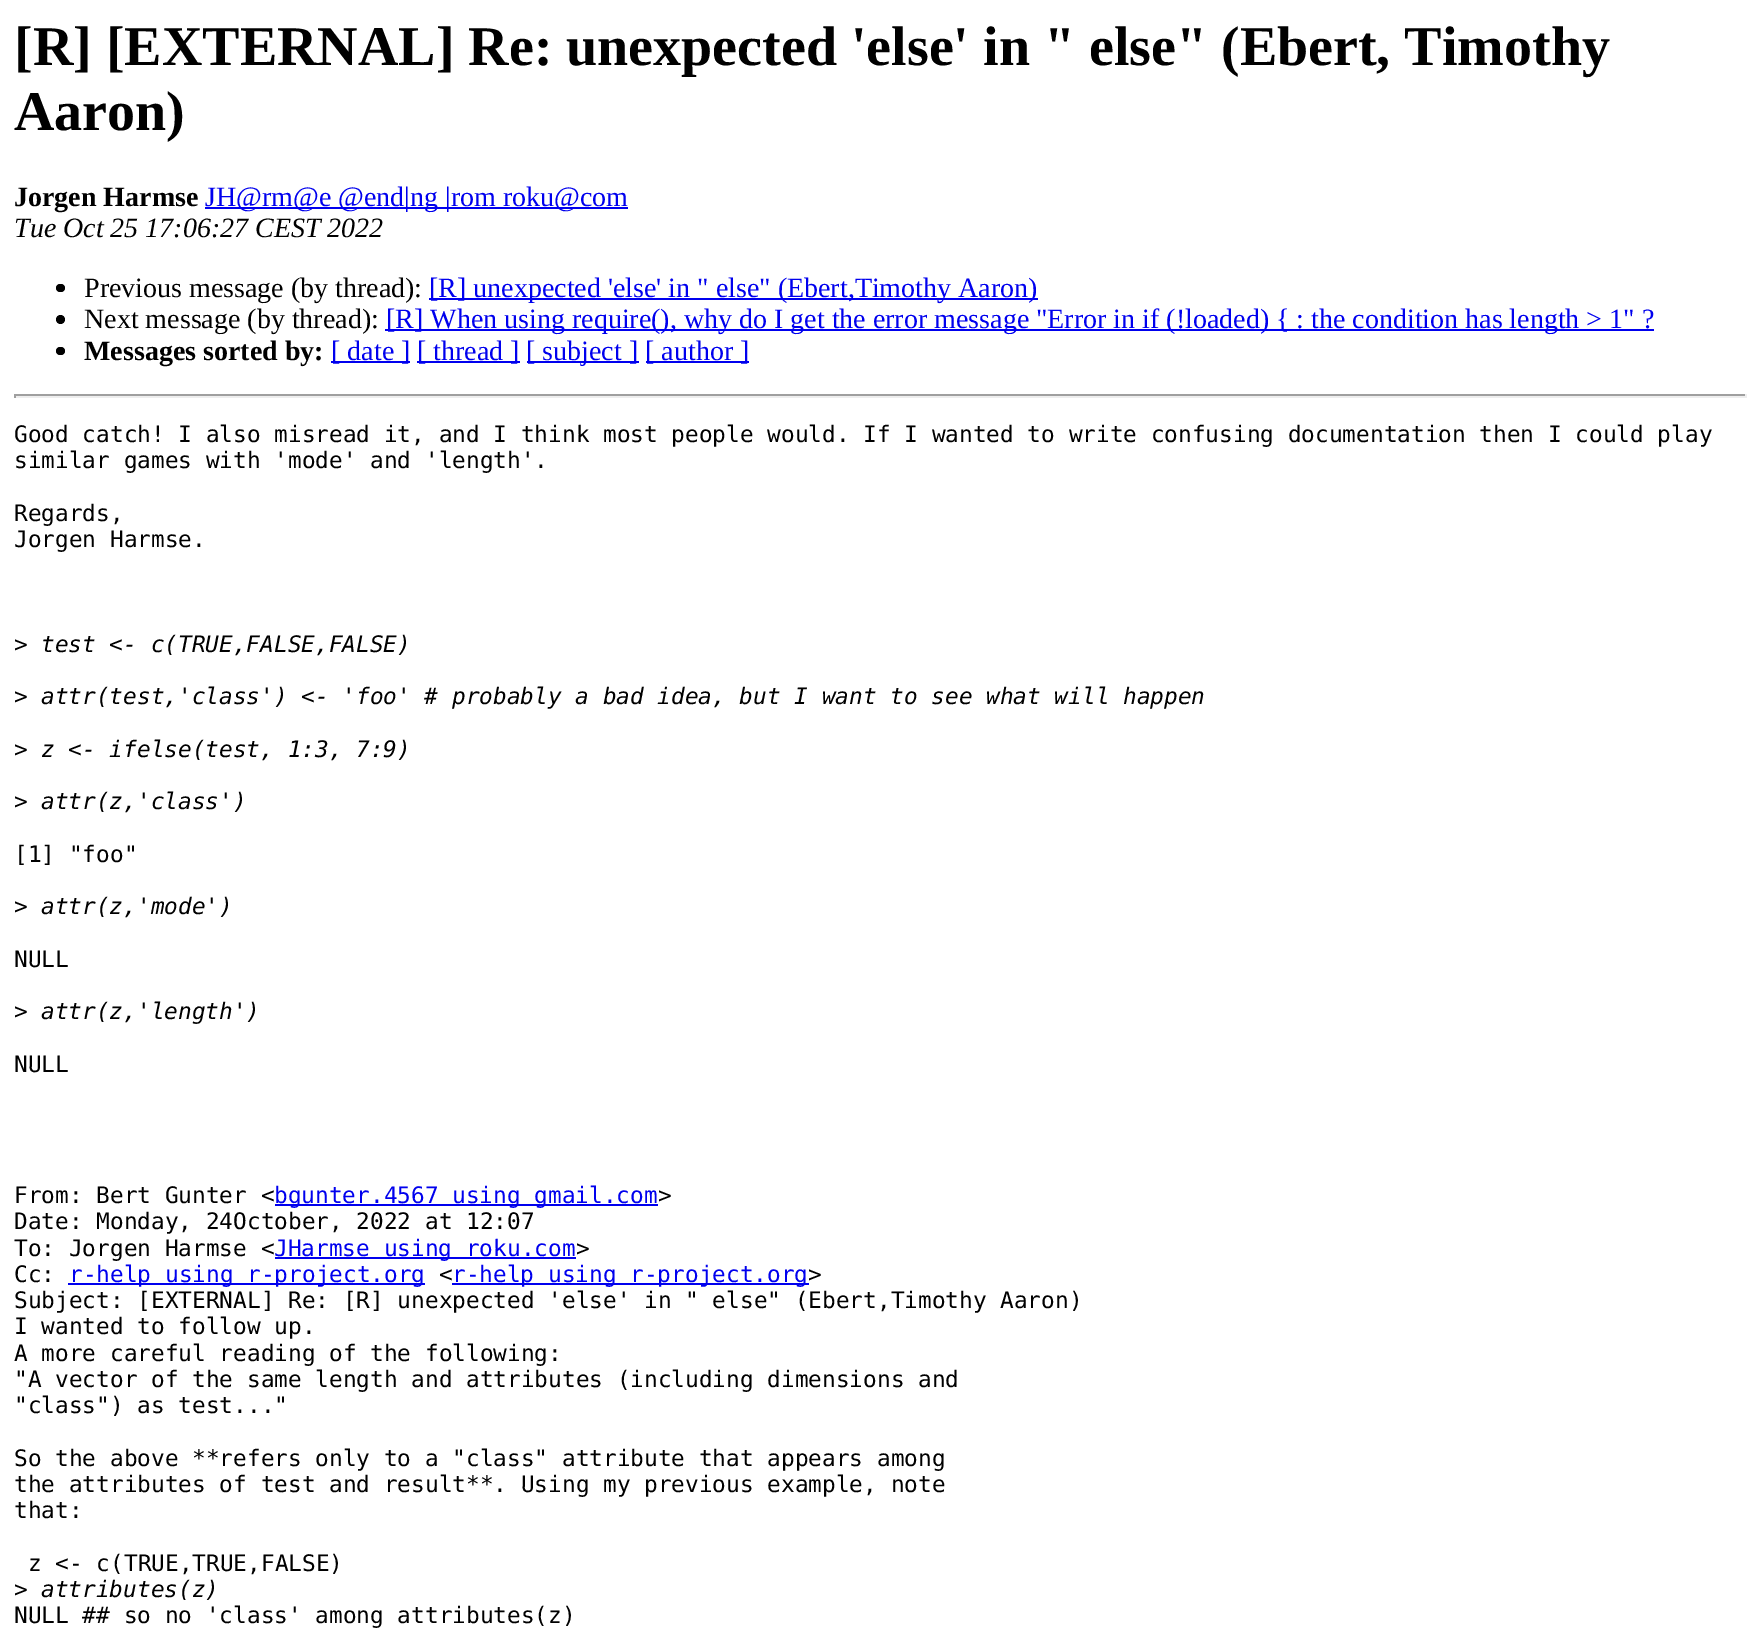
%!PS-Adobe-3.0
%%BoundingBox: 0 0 1760 1633
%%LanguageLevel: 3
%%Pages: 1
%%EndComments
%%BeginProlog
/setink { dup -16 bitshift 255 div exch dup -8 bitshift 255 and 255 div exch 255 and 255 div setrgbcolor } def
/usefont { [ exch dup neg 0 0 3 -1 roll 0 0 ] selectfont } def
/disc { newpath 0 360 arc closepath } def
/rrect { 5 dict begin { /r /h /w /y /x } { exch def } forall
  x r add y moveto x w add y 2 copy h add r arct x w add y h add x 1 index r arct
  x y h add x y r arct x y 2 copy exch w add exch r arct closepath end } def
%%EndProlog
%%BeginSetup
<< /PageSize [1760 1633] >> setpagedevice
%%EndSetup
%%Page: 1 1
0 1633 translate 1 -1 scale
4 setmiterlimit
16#FFFFFF setink
0 0 1760 1633 rectfill
/LiberationSerif-Bold 56 usefont
16#000000 setink
14 65 moveto ([R] [EXTERNAL] Re: unexpected 'else' in " else" \(Ebert, Timothy) show
14 130 moveto (Aaron\)) show
/LiberationSerif-Bold 28 usefont
14 206 moveto (Jorgen Harmse) show
16#0000EE setink
205 207 423 2 rectfill
/LiberationSerif-Regular 28 usefont
205 206 moveto (JH@rm@e @end|ng |rom roku@com) show
/LiberationSerif-Italic 28 usefont
16#000000 setink
14 237 moveto (Tue Oct 25 17:06:27 CEST 2022) show
56 284 9 8 4 rrect fill
/LiberationSerif-Regular 28 usefont
84 297 moveto (Previous message \(by thread\):) show
16#0000EE setink
429 298 609 2 rectfill
429 297 moveto ([R] unexpected 'else' in " else" \(Ebert,Timothy Aaron\)) show
16#000000 setink
60.5 319.5 4.5 disc fill
84 328 moveto (Next message \(by thread\):) show
16#0000EE setink
385 329 1269 2 rectfill
386 328 moveto ([R] When using require\(\), why do I get the error message "Error in if \(!loaded\) { : the condition has length > 1" ?) show
16#000000 setink
56 347 9 8 4 rrect fill
/LiberationSerif-Bold 28 usefont
84 360 moveto (Messages sorted by:) show
16#0000EE setink
331 361 79 2 rectfill
/LiberationSerif-Regular 28 usefont
331 360 moveto ([ date ]) show
417 361 103 2 rectfill
417 360 moveto ([ thread ]) show
527 361 112 2 rectfill
526 360 moveto ([ subject ]) show
646 361 103 2 rectfill
645 360 moveto ([ author ]) show
[
    [14 394 1733 2 16#9F9F9F]
    [1745 394 2 4 16#EEEEEE]
    [14 396 1733 2 16#EEEEEE]
    [14 394 2 4 16#9F9F9F]
] { aload pop setink rectfill } forall
/DejaVuSansMono-Regular 22.75 usefont
16#000000 setink
[
    [(Good catch! I also misread it, and I think most people would. If I wanted to write confusing documentation then I could play) 14 442]
    [(similar games with 'mode' and 'length'.) 14 468]
    [(Regards,) 14 521]
    [(Jorgen Harmse.) 14 547]
    [(>) 14 652]
] { aload pop moveto show } forall
/DejaVuSansMono-Italic 22.75 usefont
41 652 moveto (test <- c\(TRUE,FALSE,FALSE\)) show
/DejaVuSansMono-Regular 22.75 usefont
14 704 moveto (>) show
/DejaVuSansMono-Italic 22.75 usefont
41 704 moveto (attr\(test,'class'\) <- 'foo' # probably a bad idea, but I want to see what will happen) show
/DejaVuSansMono-Regular 22.75 usefont
14 757 moveto (>) show
/DejaVuSansMono-Italic 22.75 usefont
41 757 moveto (z <- ifelse\(test, 1:3, 7:9\)) show
/DejaVuSansMono-Regular 22.75 usefont
14 809 moveto (>) show
/DejaVuSansMono-Italic 22.75 usefont
41 809 moveto (attr\(z,'class'\)) show
/DejaVuSansMono-Regular 22.75 usefont
14 862 moveto ([1] "foo") show
14 914 moveto (>) show
/DejaVuSansMono-Italic 22.75 usefont
41 914 moveto (attr\(z,'mode'\)) show
/DejaVuSansMono-Regular 22.75 usefont
14 967 moveto (NULL) show
14 1019 moveto (>) show
/DejaVuSansMono-Italic 22.75 usefont
41 1019 moveto (attr\(z,'length'\)) show
/DejaVuSansMono-Regular 22.75 usefont
14 1072 moveto (NULL) show
14 1203 moveto (From: Bert Gunter <) show
16#0000EE setink
275 1204 383 2 rectfill
274 1203 moveto (bgunter.4567 using gmail.com) show
16#000000 setink
[
    [(>) 658 1203]
    [(Date: Monday, 24October, 2022 at 12:07) 14 1229]
    [(To: Jorgen Harmse <) 14 1256]
] { aload pop moveto show } forall
16#0000EE setink
275 1257 301 2 rectfill
274 1256 moveto (JHarmse using roku.com) show
16#000000 setink
576 1256 moveto (>) show
14 1282 moveto (Cc:) show
16#0000EE setink
68 1283 357 2 rectfill
69 1282 moveto (r-help using r-project.org) show
16#000000 setink
439 1282 moveto (<) show
16#0000EE setink
452 1283 357 2 rectfill
452 1282 moveto (r-help using r-project.org) show
16#000000 setink
[
    [(>) 808 1282]
    [(Subject: [EXTERNAL] Re: [R] unexpected 'else' in " else" \(Ebert,Timothy Aaron\)) 14 1308]
    [(I wanted to follow up.) 14 1334]
    [(A more careful reading of the following:) 14 1361]
    [("A vector of the same length and attributes \(including dimensions and) 14 1387]
    [("class"\) as test...") 14 1413]
    [(So the above **refers only to a "class" attribute that appears among) 14 1466]
    [(the attributes of test and result**. Using my previous example, note) 14 1492]
    [(that:) 14 1518]
    [(z <- c\(TRUE,TRUE,FALSE\)) 28 1571]
    [(>) 14 1597]
] { aload pop moveto show } forall
/DejaVuSansMono-Italic 22.75 usefont
41 1597 moveto (attributes\(z\)) show
/DejaVuSansMono-Regular 22.75 usefont
14 1623 moveto (NULL ## so no 'class' among attributes\(z\)) show
showpage
%%EOF
